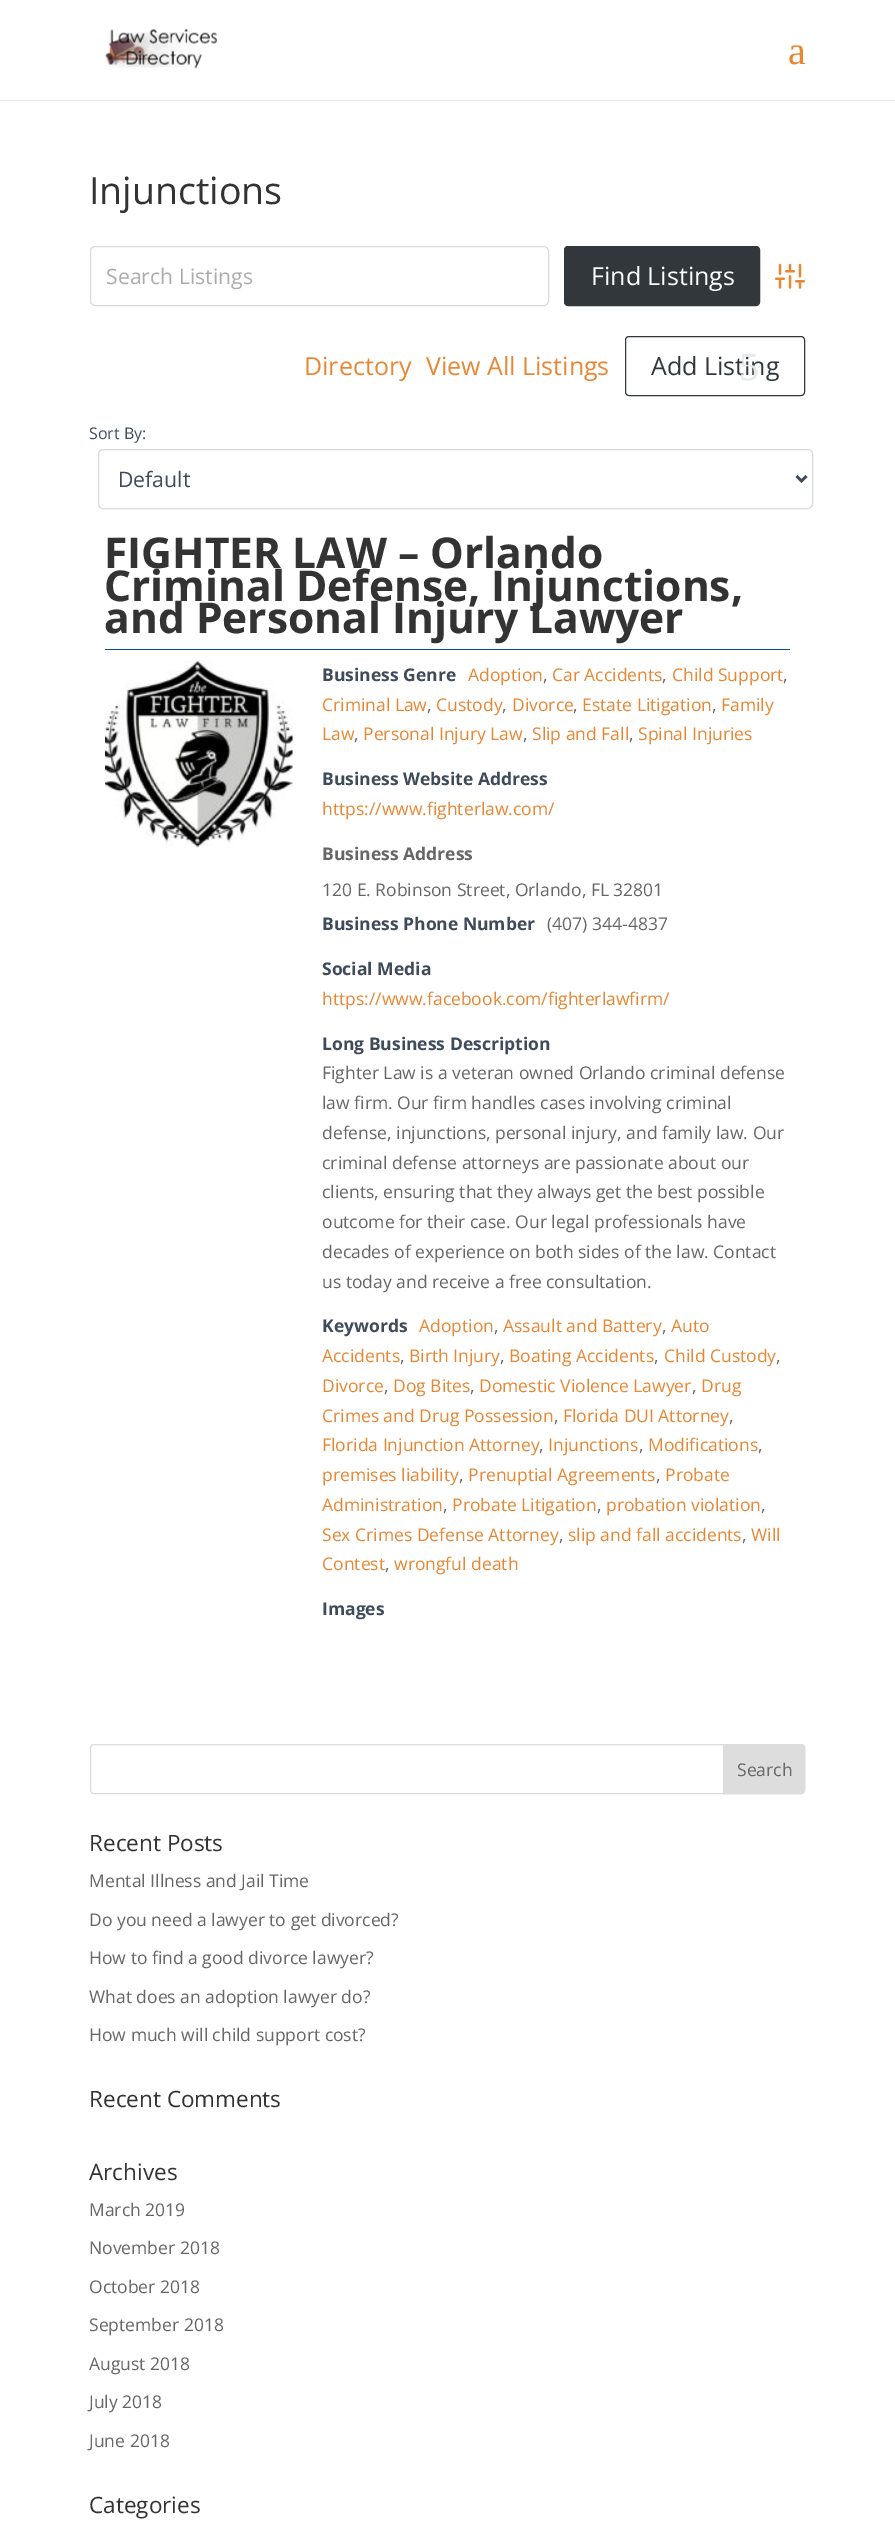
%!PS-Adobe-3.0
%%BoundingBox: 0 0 895 2544
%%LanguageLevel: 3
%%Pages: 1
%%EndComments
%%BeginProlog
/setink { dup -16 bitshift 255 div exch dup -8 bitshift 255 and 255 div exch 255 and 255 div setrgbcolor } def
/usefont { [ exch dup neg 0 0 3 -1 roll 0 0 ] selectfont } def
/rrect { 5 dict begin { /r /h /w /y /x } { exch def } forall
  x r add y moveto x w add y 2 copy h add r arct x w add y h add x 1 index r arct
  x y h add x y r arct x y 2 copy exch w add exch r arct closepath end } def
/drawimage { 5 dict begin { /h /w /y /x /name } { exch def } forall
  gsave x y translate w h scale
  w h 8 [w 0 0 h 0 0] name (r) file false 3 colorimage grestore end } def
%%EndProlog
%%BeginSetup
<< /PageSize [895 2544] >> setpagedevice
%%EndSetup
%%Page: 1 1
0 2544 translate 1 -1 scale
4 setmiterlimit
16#FFFFFF setink
0 0 895 2544 rectfill
16#E6E6E6 setink
0 100 895 1 rectfill
(img1.raw) 105 28 112 41 drawimage
/LiberationSerif-Regular 40 usefont
16#E78733 setink
788 64 moveto (a) show
/OpenSans-Regular 37.5 usefont
16#333333 setink
89 204 moveto (Injunctions) show
16#D9DBDE setink
90.5 246.5 458 59 4.5 rrect stroke
/OpenSans-Regular 21.25 usefont
16#ACACAC setink
106 284 moveto (Search Listings) show
16#32373C setink
564.5 246.5 195 59 3.5 rrect gsave fill grestore
stroke
/OpenSans-Regular 25 usefont
16#FFFFFF setink
591 285 moveto (Find Listings) show
(img2.raw) 775 263 30 26 drawimage
16#E78733 setink
304 375 moveto (Directory) show
426 375 moveto (View All Listings) show
16#32373C setink
625.5 336.5 179 59 3.5 rrect stroke
651 375 moveto (Add Listing) show
/LiberationSerif-Regular 40 usefont
16#E7E8E8 setink
739 380 moveto (5) show
/OpenSans-Regular 16 usefont
16#3F4B5B setink
89 439 moveto (Sort By:) show
16#D9DBDE setink
98.5 449.5 714 59 4.5 rrect stroke
16#3F4B5B setink
2.5 setlinewidth
796.5 476 moveto 801.5 481 lineto 806.5 476 lineto stroke
/OpenSans-Regular 21.25 usefont
118 487 moveto (Default) show
16#044F8D setink
105 649 685 1 rectfill
/OpenSans-Bold 42.5 usefont
16#333333 setink
[
    [(FIGHTER LAW – Orlando) 104 568]
    [(Criminal Defense, Injunctions,) 104 601]
    [(and Personal Injury Lawyer) 104 633]
] { aload pop moveto show } forall
(img3.raw) 105 660 188 188 drawimage
/OpenSans-Bold 17.5 usefont
16#3F4B5B setink
322 681 moveto (Business Genre) show
/OpenSans-Regular 17.5 usefont
16#E78733 setink
468 681 moveto (Adoption) show
16#666666 setink
543 681 moveto (,) show
16#E78733 setink
552 681 moveto (Car Accidents) show
16#666666 setink
662 681 moveto (,) show
16#E78733 setink
672 681 moveto (Child Support) show
16#666666 setink
783 681 moveto (,) show
16#E78733 setink
322 711 moveto (Criminal Law) show
16#666666 setink
427 711 moveto (,) show
16#E78733 setink
436 711 moveto (Custody) show
16#666666 setink
502 711 moveto (,) show
16#E78733 setink
512 711 moveto (Divorce) show
16#666666 setink
573 711 moveto (,) show
16#E78733 setink
582 711 moveto (Estate Litigation) show
16#666666 setink
712 711 moveto (,) show
16#E78733 setink
721 711 moveto (Family) show
322 740 moveto (Law) show
16#666666 setink
354 740 moveto (,) show
16#E78733 setink
363 740 moveto (Personal Injury Law) show
16#666666 setink
523 740 moveto (,) show
16#E78733 setink
532 740 moveto (Slip and Fall) show
16#666666 setink
629 740 moveto (,) show
16#E78733 setink
638 740 moveto (Spinal Injuries) show
/OpenSans-Bold 17.5 usefont
16#3F4B5B setink
322 785 moveto (Business Website Address) show
/OpenSans-Regular 17.5 usefont
16#E78733 setink
322 815 moveto (https://www.fighterlaw.com/) show
/OpenSans-Bold 17.5 usefont
16#666666 setink
322 860 moveto (Business Address) show
/OpenSans-Regular 17.5 usefont
322 896 moveto (120 E. Robinson Street, Orlando, FL 32801) show
/OpenSans-Bold 17.5 usefont
16#3F4B5B setink
322 930 moveto (Business Phone Number) show
/OpenSans-Regular 17.5 usefont
16#666666 setink
547 930 moveto (\(407\) 344-4837) show
/OpenSans-Bold 17.5 usefont
16#3F4B5B setink
322 975 moveto (Social Media) show
/OpenSans-Regular 17.5 usefont
16#E78733 setink
322 1005 moveto (https://www.facebook.com/fighterlawfirm/) show
/OpenSans-Bold 17.5 usefont
16#3F4B5B setink
322 1050 moveto (Long Business Description) show
/OpenSans-Regular 17.5 usefont
16#666666 setink
[
    [(Fighter Law is a veteran owned Orlando criminal defense) 322 1079]
    [(law firm. Our firm handles cases involving criminal) 322 1109]
    [(defense, injunctions, personal injury, and family law. Our) 322 1139]
    [(criminal defense attorneys are passionate about our) 322 1169]
    [(clients, ensuring that they always get the best possible) 322 1198]
    [(outcome for their case. Our legal professionals have) 322 1228]
    [(decades of experience on both sides of the law. Contact) 322 1258]
    [(us today and receive a free consultation.) 322 1288]
] { aload pop moveto show } forall
/OpenSans-Bold 17.5 usefont
16#3F4B5B setink
322 1332 moveto (Keywords) show
/OpenSans-Regular 17.5 usefont
16#E78733 setink
419 1332 moveto (Adoption) show
16#666666 setink
494 1332 moveto (,) show
16#E78733 setink
503 1332 moveto (Assault and Battery) show
16#666666 setink
662 1332 moveto (,) show
16#E78733 setink
671 1332 moveto (Auto) show
322 1362 moveto (Accidents) show
16#666666 setink
400 1362 moveto (,) show
16#E78733 setink
409 1362 moveto (Birth Injury) show
16#666666 setink
500 1362 moveto (,) show
16#E78733 setink
509 1362 moveto (Boating Accidents) show
16#666666 setink
654 1362 moveto (,) show
16#E78733 setink
664 1362 moveto (Child Custody) show
16#666666 setink
776 1362 moveto (,) show
16#E78733 setink
322 1392 moveto (Divorce) show
16#666666 setink
384 1392 moveto (,) show
16#E78733 setink
393 1392 moveto (Dog Bites) show
16#666666 setink
470 1392 moveto (,) show
16#E78733 setink
479 1392 moveto (Domestic Violence Lawyer) show
16#666666 setink
692 1392 moveto (,) show
16#E78733 setink
701 1392 moveto (Drug) show
322 1422 moveto (Crimes and Drug Possession) show
16#666666 setink
554 1422 moveto (,) show
16#E78733 setink
563 1422 moveto (Florida DUI Attorney) show
16#666666 setink
729 1422 moveto (,) show
16#E78733 setink
322 1451 moveto (Florida Injunction Attorney) show
16#666666 setink
539 1451 moveto (,) show
16#E78733 setink
548 1451 moveto (Injunctions) show
16#666666 setink
639 1451 moveto (,) show
16#E78733 setink
648 1451 moveto (Modifications) show
16#666666 setink
758 1451 moveto (,) show
16#E78733 setink
322 1481 moveto (premises liability) show
16#666666 setink
459 1481 moveto (,) show
16#E78733 setink
468 1481 moveto (Prenuptial Agreements) show
16#666666 setink
656 1481 moveto (,) show
16#E78733 setink
665 1481 moveto (Probate) show
322 1511 moveto (Administration) show
16#666666 setink
443 1511 moveto (,) show
16#E78733 setink
452 1511 moveto (Probate Litigation) show
16#666666 setink
597 1511 moveto (,) show
16#E78733 setink
606 1511 moveto (probation violation) show
16#666666 setink
761 1511 moveto (,) show
16#E78733 setink
322 1541 moveto (Sex Crimes Defense Attorney) show
16#666666 setink
559 1541 moveto (,) show
16#E78733 setink
568 1541 moveto (slip and fall accidents) show
16#666666 setink
742 1541 moveto (,) show
16#E78733 setink
751 1541 moveto (Will) show
322 1570 moveto (Contest) show
16#666666 setink
385 1570 moveto (,) show
16#E78733 setink
394 1570 moveto (wrongful death) show
/OpenSans-Bold 17.5 usefont
16#3F4B5B setink
322 1615 moveto (Images) show
16#DDDDDD setink
1 setlinewidth
90.5 1744.5 714 49 3.5 rrect stroke
723.5 1744.5 moveto 801 1744.5 lineto 803 1744.5 804.5 1746 804.5 1748 curveto 804.5 1790 lineto 804.5 1792 803 1793.5 801 1793.5 curveto 723.5 1793.5 lineto closepath gsave fill grestore
stroke
/OpenSans-Regular 17.5 usefont
16#666666 setink
737 1776 moveto (Search) show
/OpenSans-Regular 22.5 usefont
16#333333 setink
89 1851 moveto (Recent Posts) show
/OpenSans-Regular 17.5 usefont
16#666666 setink
[
    [(Mental Illness and Jail Time) 89 1887]
    [(Do you need a lawyer to get divorced?) 89 1926]
    [(How to find a good divorce lawyer?) 89 1964]
    [(What does an adoption lawyer do?) 89 2003]
    [(How much will child support cost?) 89 2041]
] { aload pop moveto show } forall
/OpenSans-Regular 22.5 usefont
16#333333 setink
89 2107 moveto (Recent Comments) show
89 2180 moveto (Archives) show
/OpenSans-Regular 17.5 usefont
16#666666 setink
[
    [(March 2019) 89 2216]
    [(November 2018) 89 2254]
    [(October 2018) 89 2293]
    [(September 2018) 89 2331]
    [(August 2018) 89 2370]
    [(July 2018) 89 2408]
    [(June 2018) 89 2447]
] { aload pop moveto show } forall
/OpenSans-Regular 22.5 usefont
16#333333 setink
89 2513 moveto (Categories) show
showpage
%%EOF
